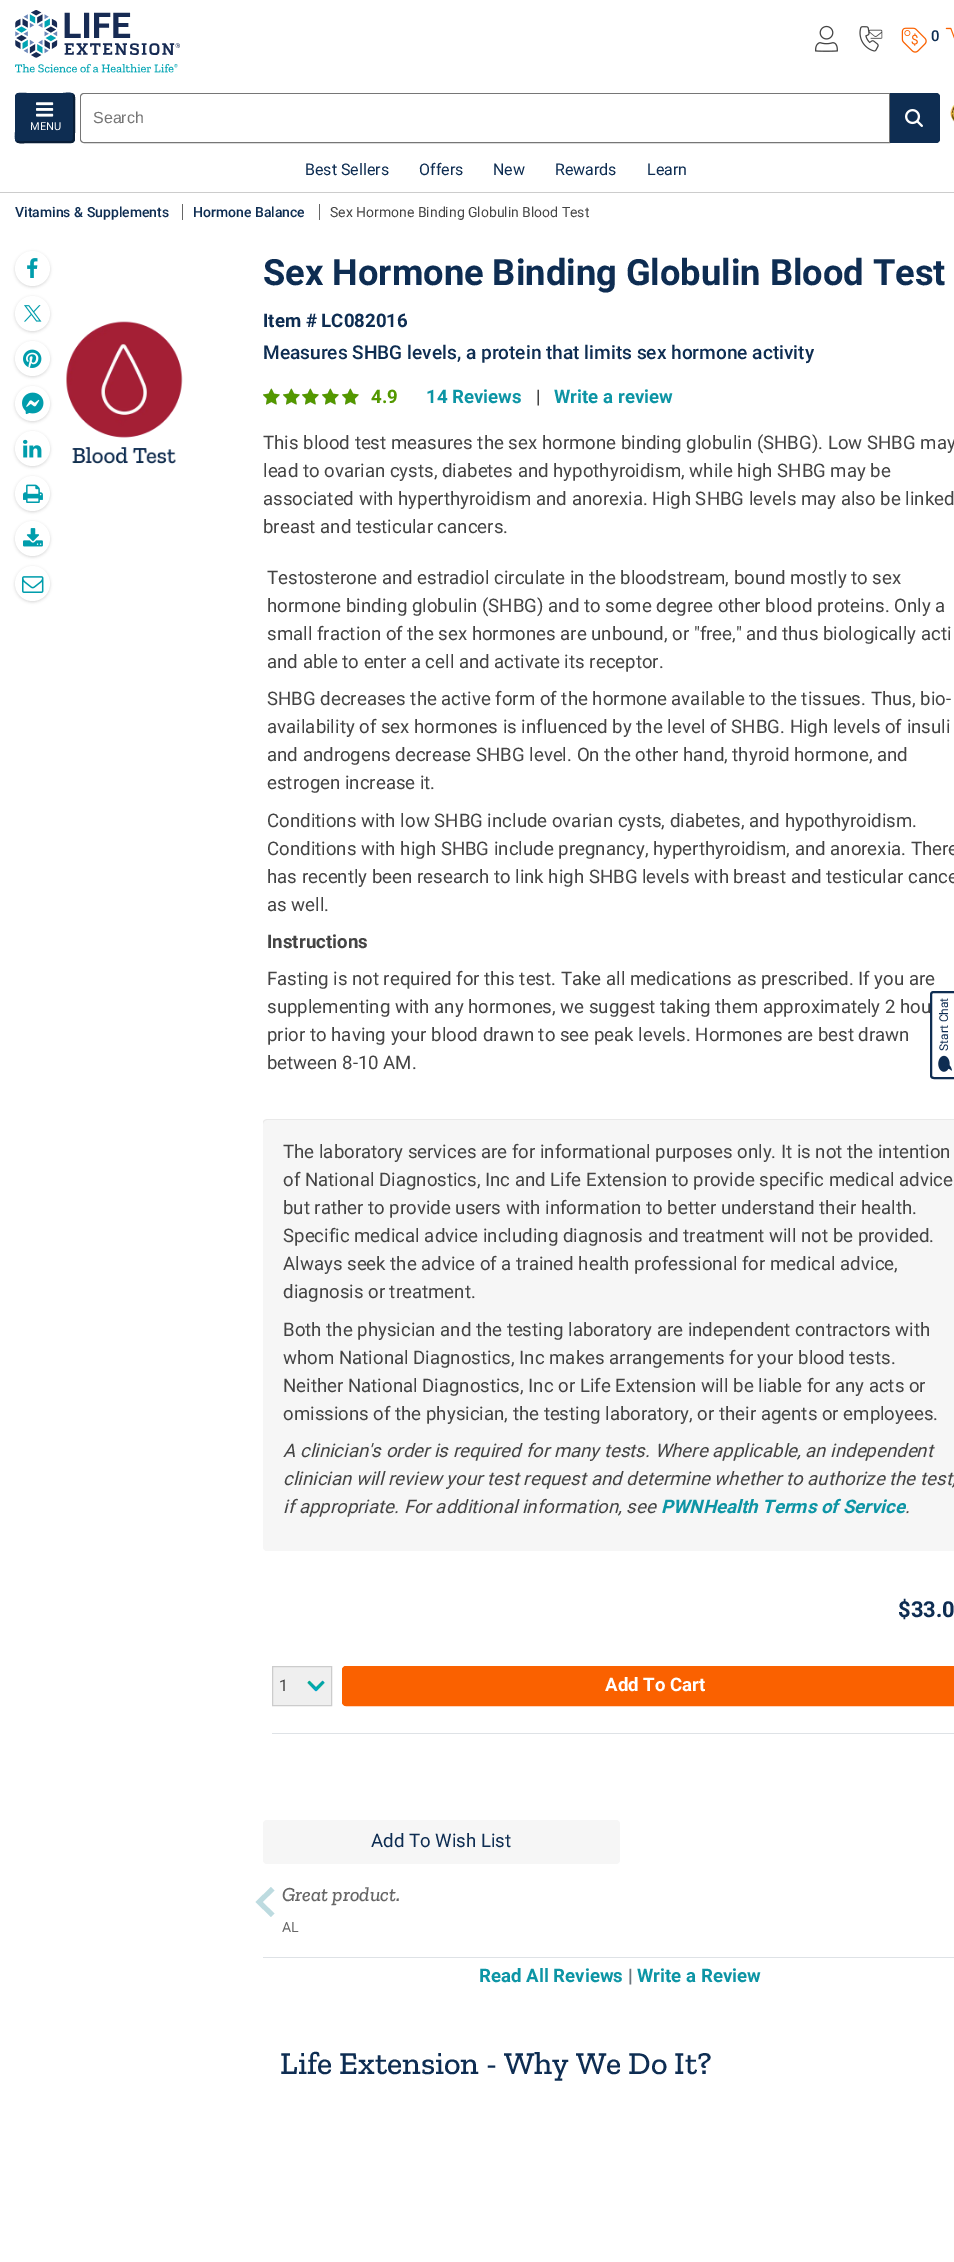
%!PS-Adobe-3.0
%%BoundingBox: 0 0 954 2262
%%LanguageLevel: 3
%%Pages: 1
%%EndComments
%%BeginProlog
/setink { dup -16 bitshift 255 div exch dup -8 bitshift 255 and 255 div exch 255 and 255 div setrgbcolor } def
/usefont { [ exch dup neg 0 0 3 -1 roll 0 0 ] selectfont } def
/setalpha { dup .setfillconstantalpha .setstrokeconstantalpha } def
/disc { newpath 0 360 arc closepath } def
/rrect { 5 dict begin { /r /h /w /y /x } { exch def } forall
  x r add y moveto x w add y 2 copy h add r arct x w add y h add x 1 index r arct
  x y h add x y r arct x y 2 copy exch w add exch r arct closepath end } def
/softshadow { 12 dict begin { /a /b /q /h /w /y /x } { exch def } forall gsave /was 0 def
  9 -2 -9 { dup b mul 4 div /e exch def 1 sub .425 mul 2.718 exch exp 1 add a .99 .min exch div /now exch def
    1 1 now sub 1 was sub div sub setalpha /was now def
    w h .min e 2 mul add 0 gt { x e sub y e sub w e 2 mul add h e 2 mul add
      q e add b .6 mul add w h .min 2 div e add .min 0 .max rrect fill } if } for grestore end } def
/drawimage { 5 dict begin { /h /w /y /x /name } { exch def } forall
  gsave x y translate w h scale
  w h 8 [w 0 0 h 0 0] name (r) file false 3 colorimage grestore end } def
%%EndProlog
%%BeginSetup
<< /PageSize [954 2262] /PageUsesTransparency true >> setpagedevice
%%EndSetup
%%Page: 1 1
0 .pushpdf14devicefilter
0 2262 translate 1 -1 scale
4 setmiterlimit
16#FFFFFF setink
0 0 954 2262 rectfill
16#CCCCCC setink
0 192 954 1 rectfill
(img1.raw) 15 10 165 63 drawimage
(img2.raw) 815 25 23 27 drawimage
(img3.raw) 859 26 24 26 drawimage
(img4.raw) 901 27 26 26 drawimage
/Roboto-Medium 15 usefont
16#0E2D52 setink
931 41 moveto (0) show
(img5.raw) 945 27 9 12 drawimage
16#767676 setink
84 93.5 moveto 889.5 93.5 lineto 889.5 142.5 lineto 84 142.5 lineto 82 142.5 80.5 141 80.5 139 curveto 80.5 97 lineto 80.5 95 82 93.5 84 93.5 curveto closepath stroke
16#FFFFFF setink
85 94 moveto 889 94 lineto 889 142 lineto 85 142 lineto 83 142 81 140 81 138 curveto 81 98 lineto 81 96 83 94 85 94 curveto closepath fill
/LiberationSans-Regular 16 usefont
16#757575 setink
93 123 moveto (Search) show
16#0E2D52 setink
890 93 moveto 936 93 lineto 938 93 940 95 940 97 curveto 940 139 lineto 940 141 938 143 936 143 curveto 890 143 lineto closepath fill
890 93 moveto 936 93 lineto 938 93 940 95 940 97 curveto 940 139 lineto 940 141 938 143 936 143 curveto 890 143 lineto closepath 890 94 moveto 936 94 lineto 938 94 939 95 939 97 curveto 939 139 lineto 939 141 938 142 936 142 curveto 890 142 lineto closepath eofill
(img6.raw) 905 109 18 18 drawimage
(img7.raw) 950 105 4 17 drawimage
15 93 60 50 4 rrect fill
16#091E37 setink
2 setlinewidth
73 95 moveto 75 97 74 103 74 104 curveto 74 132 lineto 74 144 74.5 142 62.5 142 curveto 27.5 142 lineto 24 142 19.5 143.5 17 141 curveto stroke
16#0E2D52 setink
17 141 moveto 15 139 16 133 16 132 curveto 16 104 lineto 16 92 15.5 94 27.5 94 curveto 62.5 94 lineto 66 94 70.5 92.5 73 95 curveto stroke
(img8.raw) 36 102 18 15 drawimage
/Roboto-Regular 11 usefont
16#FFFFFF setink
30 130 moveto (MENU) show
/Roboto-Regular 16 usefont
16#0E2D52 setink
[
    [(Best Sellers) 305 175]
    [(Offers) 419 175]
    [(New) 493 175]
    [(Rewards) 555 175]
    [(Learn) 647 175]
] { aload pop moveto show } forall
/Roboto-Medium 14 usefont
15 217 moveto (Vitamins & Supplements) show
16#666666 setink
182 204 1 16 rectfill
16#0E2D52 setink
193 217 moveto (Hormone Balance) show
16#666666 setink
319 204 1 16 rectfill
/Roboto-Regular 14 usefont
16#444444 setink
330 217 moveto (Sex Hormone Binding Globulin Blood Test) show
16#000000 setink
15 252 35 35 17.5 1.5 0.15 softshadow
16#FFFFFF setink
32.5 268.5 17.5 disc fill
(img9.raw) 27 258 11 20 drawimage
16#000000 setink
15 297 35 35 17.5 1.5 0.15 softshadow
16#FFFFFF setink
32.5 313.5 17.5 disc fill
(img10.raw) 24 305 18 17 drawimage
16#000000 setink
15 342 35 35 17.5 1.5 0.15 softshadow
16#FFFFFF setink
32.5 358.5 17.5 disc fill
(img11.raw) 23 349 19 19 drawimage
16#000000 setink
15 387 35 35 17.5 1.5 0.15 softshadow
16#FFFFFF setink
32.5 403.5 17.5 disc fill
(img12.raw) 22 392 22 23 drawimage
16#000000 setink
15 432 35 35 17.5 1.5 0.15 softshadow
16#FFFFFF setink
32.5 448.5 17.5 disc fill
(img13.raw) 23 439 19 19 drawimage
16#000000 setink
15 477 35 35 17.5 1.5 0.15 softshadow
16#FFFFFF setink
32.5 493.5 17.5 disc fill
(img14.raw) 23 484 20 19 drawimage
16#000000 setink
15 522 35 35 17.5 1.5 0.15 softshadow
16#FFFFFF setink
32.5 538.5 17.5 disc fill
(img15.raw) 23 528 20 19 drawimage
16#000000 setink
15 567 35 35 17.5 1.5 0.15 softshadow
16#FFFFFF setink
32.5 583.5 17.5 disc fill
(img16.raw) 22 576 22 17 drawimage
(img17.raw) 66 321 117 143 drawimage
/Roboto-Bold 36.25 usefont
16#0E2D52 setink
263 285 moveto (Sex Hormone Binding Globulin Blood Test) show
/Roboto-Bold 18.65 usefont
263 327 moveto (Item # LC082016) show
/Roboto-Medium 19.1 usefont
263 359 moveto (Measures SHBG levels, a protein that limits sex hormone activity) show
(img18.raw) 263 388 17 17 drawimage
(img18.raw) 283 388 17 17 drawimage
(img18.raw) 302 388 17 17 drawimage
(img18.raw) 322 388 17 17 drawimage
(img18.raw) 342 388 17 17 drawimage
(img19.raw) 263 388 17 17 drawimage
(img19.raw) 283 388 17 17 drawimage
(img19.raw) 302 388 17 17 drawimage
(img19.raw) 322 388 17 17 drawimage
(img19.raw) 342 388 17 17 drawimage
/Roboto-Bold 18.65 usefont
16#539800 setink
371 403 moveto (4.9) show
16#0D95A5 setink
426 403 moveto (14 Reviews) show
/Roboto-Regular 18.65 usefont
16#444444 setink
536 403 moveto (|) show
/Roboto-Bold 18.65 usefont
16#0D95A5 setink
554 403 moveto (Write a review) show
/Roboto-Regular 18.65 usefont
16#444444 setink
[
    [(This blood test measures the sex hormone binding globulin \(SHBG\). Low SHBG may) 263 449]
    [(lead to ovarian cysts, diabetes and hypothyroidism, while high SHBG may be) 263 477]
    [(associated with hyperthyroidism and anorexia. High SHBG levels may also be linked) 263 505]
    [(breast and testicular cancers.) 263 533]
    [(Testosterone and estradiol circulate in the bloodstream, bound mostly to sex) 267 584]
    [(hormone binding globulin \(SHBG\) and to some degree other blood proteins. Only a) 267 612]
    [(small fraction of the sex hormones are unbound, or "free," and thus biologically acti) 267 640]
    [(and able to enter a cell and activate its receptor.) 267 668]
    [(SHBG decreases the active form of the hormone available to the tissues. Thus, bio-) 267 705]
    [(availability of sex hormones is influenced by the level of SHBG. High levels of insuli) 267 733]
    [(and androgens decrease SHBG level. On the other hand, thyroid hormone, and) 267 761]
    [(estrogen increase it.) 267 789]
    [(Conditions with low SHBG include ovarian cysts, diabetes, and hypothyroidism.) 267 827]
    [(Conditions with high SHBG include pregnancy, hyperthyroidism, and anorexia. There) 267 855]
    [(has recently been research to link high SHBG levels with breast and testicular cance) 267 883]
    [(as well.) 267 911]
] { aload pop moveto show } forall
/Roboto-Bold 18.65 usefont
267 948 moveto (Instructions) show
/Roboto-Regular 18.65 usefont
[
    [(Fasting is not required for this test. Take all medications as prescribed. If you are) 267 985]
    [(supplementing with any hormones, we suggest taking them approximately 2 hou) 267 1013]
    [(prior to having your blood drawn to see peak levels. Hormones are best drawn) 267 1041]
    [(between 8-10 AM.) 267 1069]
] { aload pop moveto show } forall
16#F6F6F6 setink
263 1119 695 432 4 rrect fill
0.05 setalpha
16#000000 setink
267 1120 moveto 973 1120 lineto 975 1120 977 1122 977 1124 curveto 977 1121 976 1119 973 1119 curveto 267 1119 lineto 264 1120 lineto 263 1121 lineto 263 1124 lineto 263 1122 265 1120 267 1120 curveto closepath fill
1 setalpha
16#444444 setink
[
    [(The laboratory services are for informational purposes only. It is not the intention) 283 1158]
    [(of National Diagnostics, Inc and Life Extension to provide specific medical advice) 283 1186]
    [(but rather to provide users with information to better understand their health.) 283 1214]
    [(Specific medical advice including diagnosis and treatment will not be provided.) 283 1242]
    [(Always seek the advice of a trained health professional for medical advice,) 283 1270]
    [(diagnosis or treatment.) 283 1298]
    [(Both the physician and the testing laboratory are independent contractors with) 283 1336]
    [(whom National Diagnostics, Inc makes arrangements for your blood tests.) 283 1364]
    [(Neither National Diagnostics, Inc or Life Extension will be liable for any acts or) 283 1392]
    [(omissions of the physician, the testing laboratory, or their agents or employees.) 283 1420]
] { aload pop moveto show } forall
/Roboto-Italic 18.65 usefont
[
    [(A clinician's order is required for many tests. Where applicable, an independent) 283 1457]
    [(clinician will review your test request and determine whether to authorize the test,) 283 1485]
    [(if appropriate. For additional information, see) 283 1513]
] { aload pop moveto show } forall
/Roboto-BoldItalic 18.65 usefont
16#0D95A5 setink
661 1513 moveto (PWNHealth Terms of Service) show
/Roboto-Italic 18.65 usefont
16#444444 setink
905 1513 moveto (.) show
/Roboto-Bold 22 usefont
16#0E2D52 setink
898 1617 moveto ($33.0) show
16#DEE2E6 setink
272 1733 682 1 rectfill
16#EFEFEF setink
273 1667 58 38 rectfill
(img20.raw) 307 1680 18 12 drawimage
16#CCCCCC setink
1 setlinewidth
272.5 1666.5 59 39 rectstroke
/Roboto-Regular 16 usefont
16#444444 setink
279 1691 moveto (1) show
16#FA6100 setink
342.5 1666.5 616 39 3.5 rrect gsave fill grestore
stroke
/Roboto-Bold 18.65 usefont
16#FFFFFF setink
605 1691 moveto (Add To Cart) show
16#F6F6F6 setink
263 1820 357 44 4 rrect fill
/Roboto-Regular 18.65 usefont
16#0E2D52 setink
371 1847 moveto (Add To Wish List) show
16#BDDBE0 setink
271 1887 moveto 274.5 1890.5 lineto 262.5 1902 lineto 274.5 1913.5 lineto 271 1917 lineto 255.5 1902 lineto closepath fill
/ZillaSlab-MediumItalic 20 usefont
16#666666 setink
282 1901 moveto (Great product.) show
/Roboto-Regular 14 usefont
282 1932 moveto (AL) show
16#DEE2E6 setink
263 1957 691 1 rectfill
/Roboto-Bold 18.65 usefont
16#0D95A5 setink
479 1982 moveto (Read All Reviews) show
16#6C757D setink
628 1982 moveto (|) show
16#0D95A5 setink
637 1982 moveto (Write a Review) show
/ZillaSlab-Medium 32 usefont
16#0E2D52 setink
280 2074 moveto (Life Extension - Why We Do It?) show
16#FFFFFF setink
930 1075 moveto 930 995 lineto 930 993 932 991 934 991 curveto 954 991 lineto 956 991 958 993 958 995 curveto 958 1075 lineto 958 1077 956 1079 954 1079 curveto 934 1079 lineto 932 1079 930 1077 930 1075 curveto closepath fill
16#0E2D52 setink
2 setlinewidth
931 1075 moveto 931 995 lineto 931 993 932 992 934 992 curveto 954 992 lineto 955.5 992 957 993 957 995 curveto 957 1075 lineto 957 1077 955.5 1078 954 1078 curveto 934 1078 lineto 932 1078 931 1077 931 1075 curveto closepath stroke
/Roboto-Regular 12 usefont
gsave 948 1051 translate -90 rotate 0 0 moveto (Start Chat) show grestore
(img21.raw) 938 1055 14 17 drawimage
.poppdf14devicefilter showpage
%%EOF
